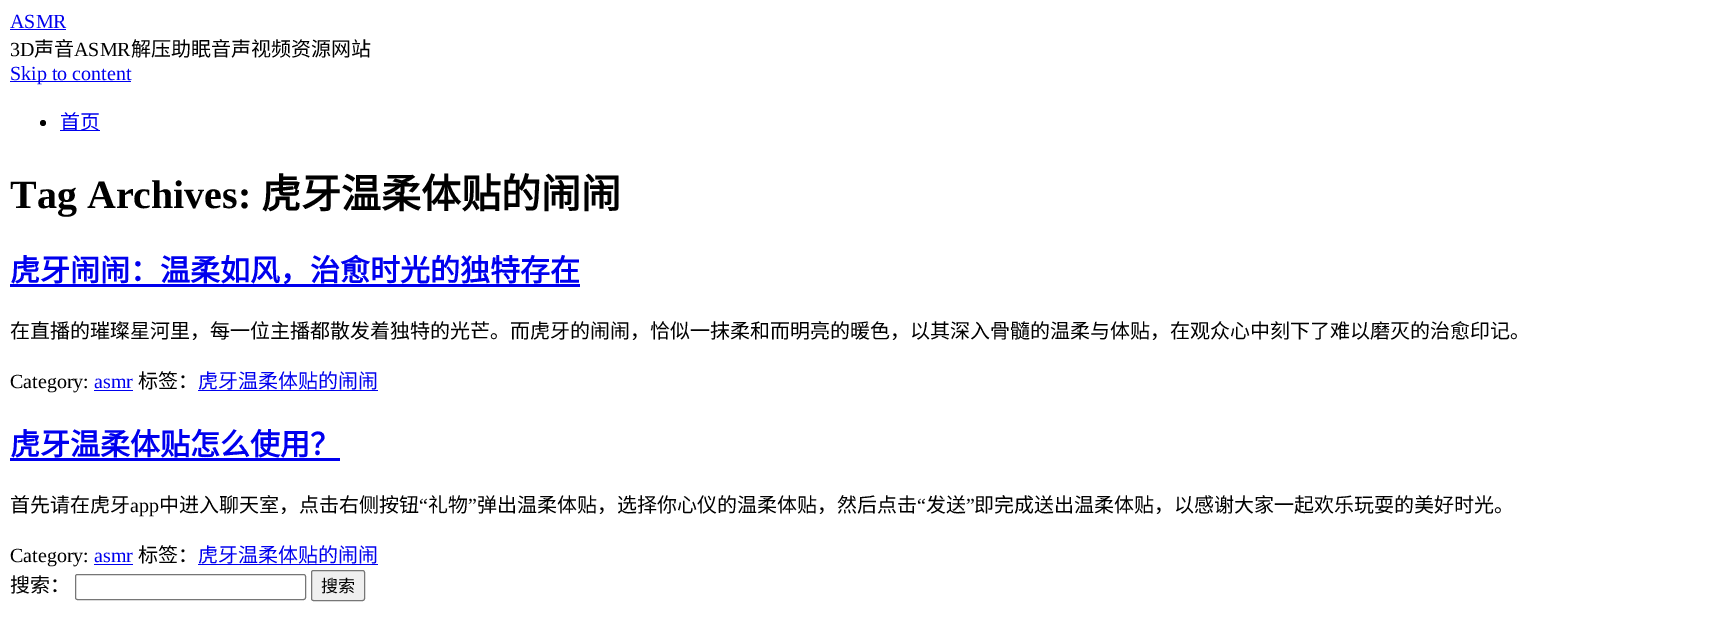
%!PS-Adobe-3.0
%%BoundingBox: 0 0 1718 625
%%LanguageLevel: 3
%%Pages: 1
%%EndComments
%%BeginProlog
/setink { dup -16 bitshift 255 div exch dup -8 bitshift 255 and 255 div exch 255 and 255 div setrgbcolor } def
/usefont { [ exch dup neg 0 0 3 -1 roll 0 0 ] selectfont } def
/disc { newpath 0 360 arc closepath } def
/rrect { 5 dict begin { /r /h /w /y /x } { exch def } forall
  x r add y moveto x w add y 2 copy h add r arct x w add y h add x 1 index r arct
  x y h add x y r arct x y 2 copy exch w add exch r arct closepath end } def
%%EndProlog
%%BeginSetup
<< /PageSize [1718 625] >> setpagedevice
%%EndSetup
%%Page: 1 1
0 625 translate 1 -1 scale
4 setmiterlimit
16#FFFFFF setink
0 0 1718 625 rectfill
/LiberationSerif-Regular 20 usefont
16#0000EE setink
10 28 moveto (ASMR) show
10 29 56 1 rectfill
16#000000 setink
10 56 moveto (3D) show
/NotoSansCJKSC-Regular 20 usefont
34 56 moveto (声音) show
/LiberationSerif-Regular 20 usefont
74 56 moveto (ASMR) show
/NotoSansCJKSC-Regular 20 usefont
131 56 moveto (解压助眠音声视频资源网站) show
16#0000EE setink
10 81 121 1 rectfill
/LiberationSerif-Regular 20 usefont
10 80 moveto (Skip to content) show
16#000000 setink
43 123 3 disc fill
16#0000EE setink
60 130 40 1 rectfill
/NotoSansCJKSC-Regular 20 usefont
60 129 moveto (首页) show
/LiberationSerif-Bold 40 usefont
16#000000 setink
10 208 moveto (Tag Archives:) show
/NotoSansCJKSC-Bold 40 usefont
261 208 moveto (虎牙温柔体贴的闹闹) show
16#0000EE setink
10 284 570 3 rectfill
/NotoSansCJKSC-Bold 30 usefont
10 281 moveto (虎牙闹闹：温柔如风，治愈时光的独特存在) show
/NotoSansCJKSC-Regular 20 usefont
16#000000 setink
10 338 moveto (在直播的璀璨星河里，每一位主播都散发着独特的光芒。而虎牙的闹闹，恰似一抹柔和而明亮的暖色，以其深入骨髓的温柔与体贴，在观众心中刻下了难以磨灭的治愈印记。) show
/LiberationSerif-Regular 20 usefont
10 388 moveto (Category:) show
16#0000EE setink
94 388 moveto (asmr) show
94 390 39 1 rectfill
/NotoSansCJKSC-Regular 20 usefont
16#000000 setink
138 388 moveto (标签：) show
16#0000EE setink
198 388 moveto (虎牙温柔体贴的闹闹) show
198 390 180 1 rectfill
/NotoSansCJKSC-Bold 30 usefont
10 455 moveto (虎牙温柔体贴怎么使用？) show
10 458 330 3 rectfill
/NotoSansCJKSC-Regular 20 usefont
16#000000 setink
10 512 moveto (首先请在虎牙) show
159 512 moveto (中进入聊天室，点击右侧按钮) show
/LiberationSerif-Regular 20 usefont
419 512 moveto (“) show
/NotoSansCJKSC-Regular 20 usefont
428 512 moveto (礼物) show
/LiberationSerif-Regular 20 usefont
468 512 moveto (”) show
/NotoSansCJKSC-Regular 20 usefont
477 512 moveto (弹出温柔体贴，选择你心仪的温柔体贴，然后点击) show
/LiberationSerif-Regular 20 usefont
917 512 moveto (“) show
/NotoSansCJKSC-Regular 20 usefont
926 512 moveto (发送) show
/LiberationSerif-Regular 20 usefont
966 512 moveto (”) show
/NotoSansCJKSC-Regular 20 usefont
974 512 moveto (即完成送出温柔体贴，以感谢大家一起欢乐玩耍的美好时光。) show
/LiberationSerif-Regular 20 usefont
130 512 moveto (app) show
10 562 moveto (Category:) show
16#0000EE setink
94 562 moveto (asmr) show
94 564 39 1 rectfill
/NotoSansCJKSC-Regular 20 usefont
16#000000 setink
138 562 moveto (标签：) show
16#0000EE setink
198 562 moveto (虎牙温柔体贴的闹闹) show
198 564 180 1 rectfill
16#000000 setink
10 592 moveto (搜索：) show
16#767676 setink
75.5 574.5 230 25 2 rrect stroke
16#EFEFEF setink
311.5 570.5 53 30 2 rrect gsave fill grestore
16#767676 setink
stroke
/NotoSansCJKSC-Regular 17 usefont
16#000000 setink
321 592 moveto (搜索) show
showpage
%%EOF
